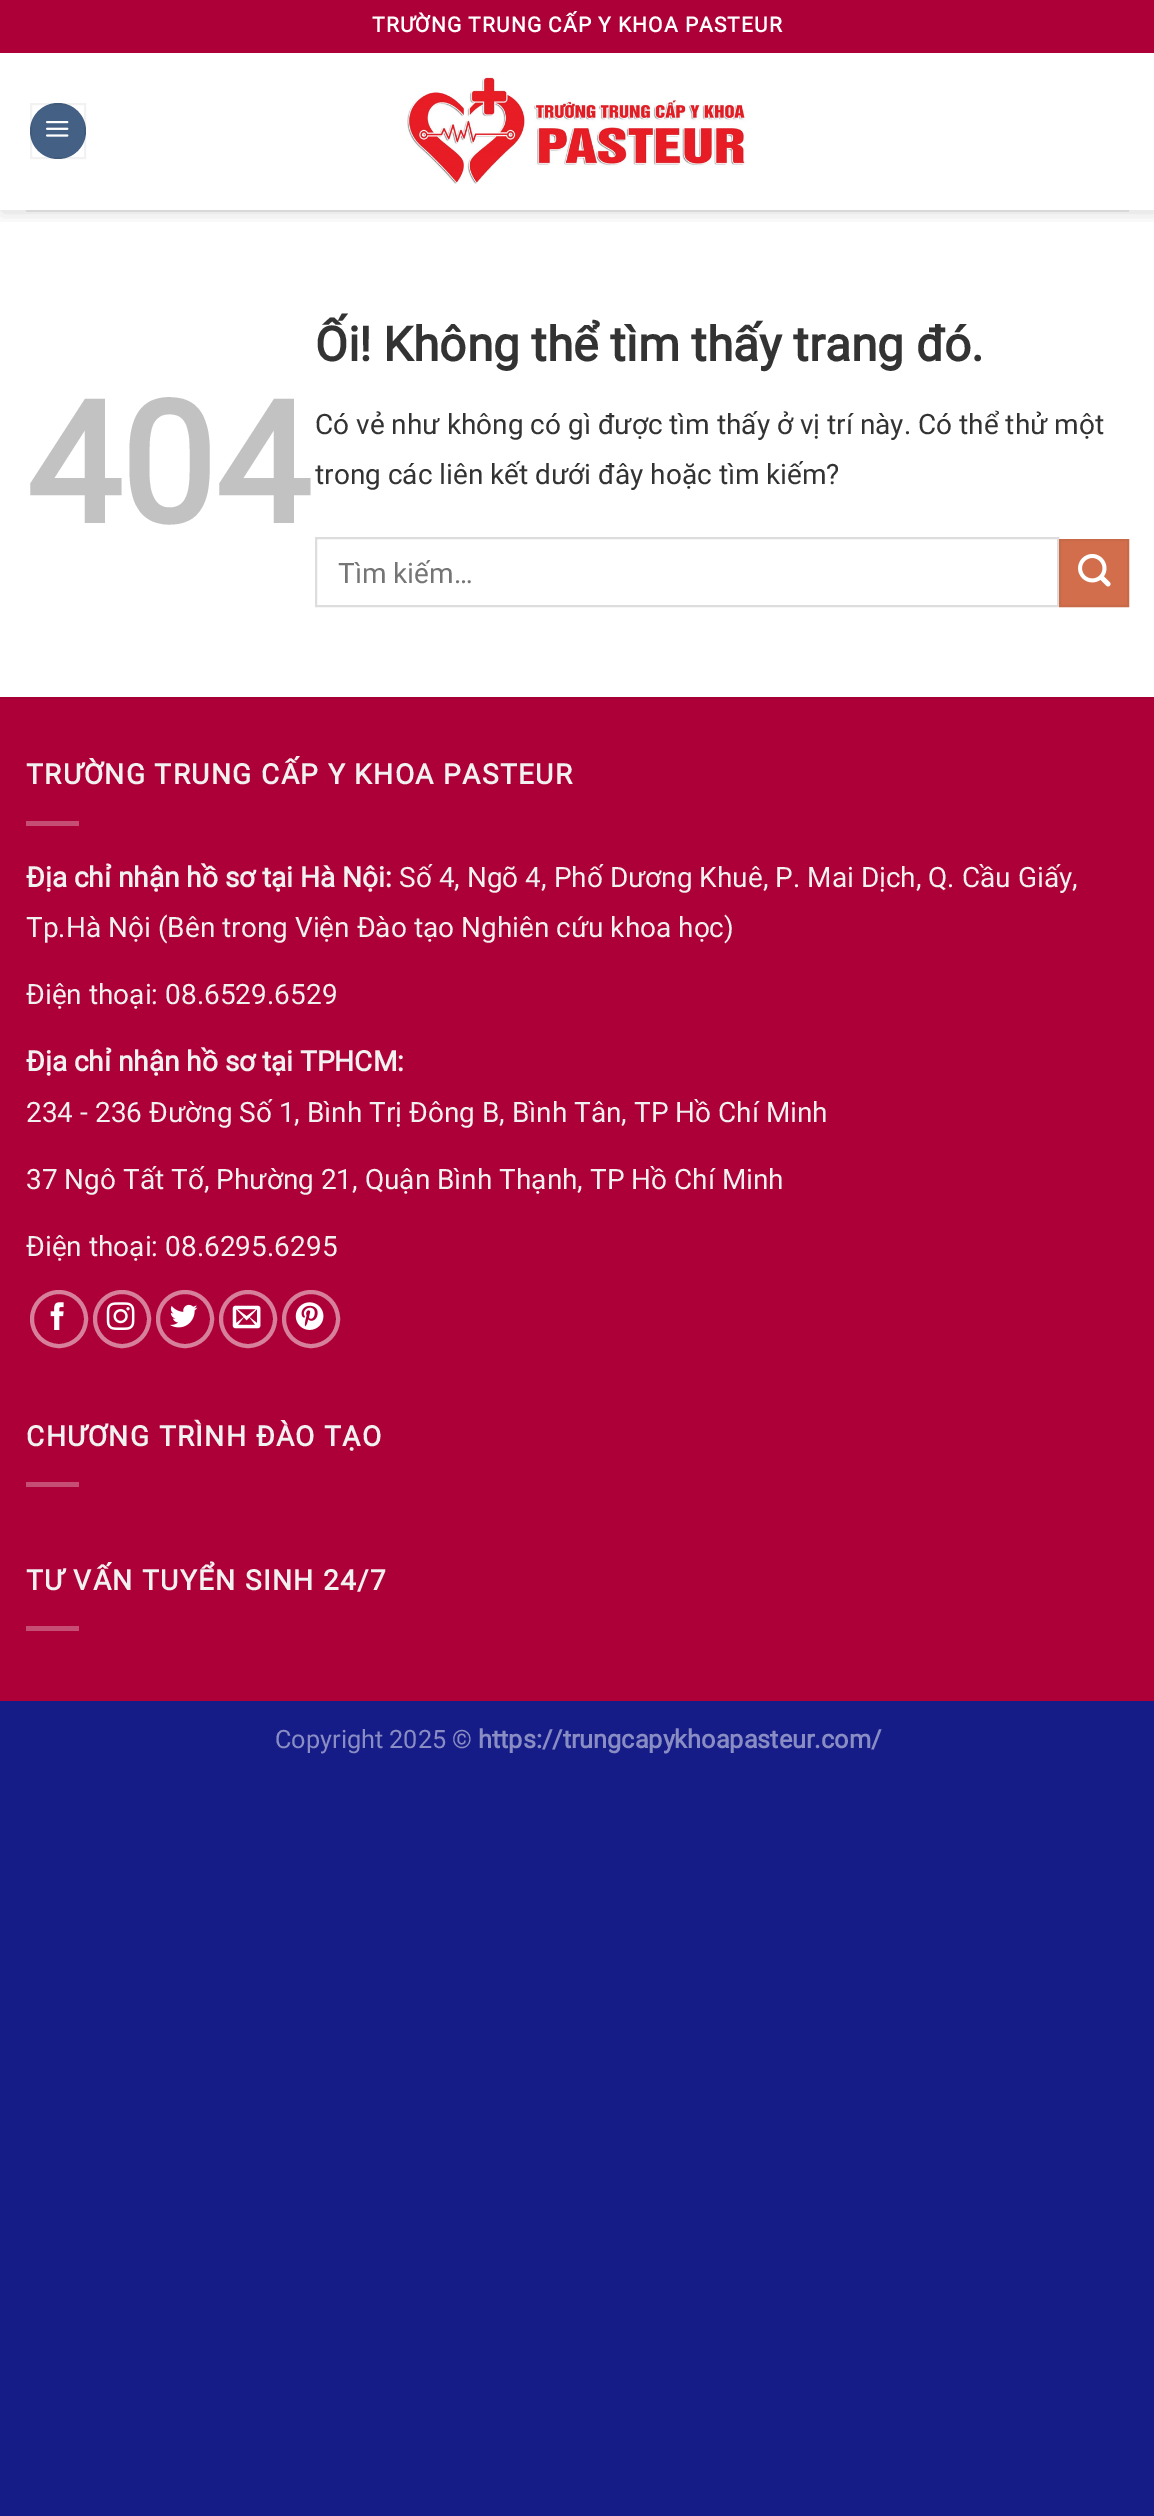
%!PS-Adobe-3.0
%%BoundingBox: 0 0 1154 2516
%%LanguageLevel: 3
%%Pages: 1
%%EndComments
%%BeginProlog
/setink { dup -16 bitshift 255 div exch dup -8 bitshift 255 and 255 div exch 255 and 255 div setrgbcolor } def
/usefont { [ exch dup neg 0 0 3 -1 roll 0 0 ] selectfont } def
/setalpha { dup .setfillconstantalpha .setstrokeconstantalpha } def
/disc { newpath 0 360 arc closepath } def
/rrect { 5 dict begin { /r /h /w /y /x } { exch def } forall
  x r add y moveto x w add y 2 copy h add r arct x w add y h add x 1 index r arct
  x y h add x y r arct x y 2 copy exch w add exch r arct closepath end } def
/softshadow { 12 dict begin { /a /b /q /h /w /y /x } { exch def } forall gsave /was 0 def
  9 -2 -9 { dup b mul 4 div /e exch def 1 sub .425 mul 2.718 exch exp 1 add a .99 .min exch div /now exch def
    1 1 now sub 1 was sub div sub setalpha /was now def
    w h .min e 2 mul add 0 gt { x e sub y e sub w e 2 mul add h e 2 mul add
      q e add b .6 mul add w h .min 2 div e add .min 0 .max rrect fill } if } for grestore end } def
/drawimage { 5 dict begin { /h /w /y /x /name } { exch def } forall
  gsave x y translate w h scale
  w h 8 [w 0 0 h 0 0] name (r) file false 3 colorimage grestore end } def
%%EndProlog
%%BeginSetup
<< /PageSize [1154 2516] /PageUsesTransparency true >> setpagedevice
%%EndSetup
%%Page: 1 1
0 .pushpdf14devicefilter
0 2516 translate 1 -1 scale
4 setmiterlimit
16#151B87 setink
0 0 1154 2516 rectfill
16#FFFFFF setink
0 53 1154 644 rectfill
gsave
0 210 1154 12 rectclip
16#000000 setink
2 2 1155 210 0 9 0.15 softshadow
grestore
16#AE0038 setink
0 0 1154 53 rectfill
/Roboto-Bold 21 usefont
16#FFFFFF setink
372 32 moveto 1.05 0 (TRƯỜNG TRUNG CẤP Y KHOA PASTEUR) ashow
16#446084 setink
58 131 28 disc fill
0.05 setalpha
16#000000 setink
2 setlinewidth
31 104 54 54 rectstroke
1 setalpha
(img1.raw) 46 121 23 16 drawimage
(img2.raw) 407 77 340 107 drawimage
16#D8D8D8 setink
26 210 1103 2 rectfill
/Roboto-Bold 168 usefont
16#C2C2C2 setink
26 523 moveto (404) show
/Roboto-Bold 47.6 usefont
16#333333 setink
315 361 moveto (Ối! Không thể tìm thấy trang đó.) show
/Roboto-Regular 28 usefont
315 434 moveto (Có vẻ như không có gì được tìm thấy ở vị trí này. Có thể thử một) show
315 484 moveto (trong các liên kết dưới đây hoặc tìm kiếm?) show
16#DDDDDD setink
316 538 742 68 rectstroke
16#757575 setink
338 583 moveto (Tìm kiếm…) show
16#D26E4B setink
1060 540 moveto 1128 540 lineto 1128 606 lineto 1060 606 lineto closepath gsave fill grestore
16#C86947 setink
stroke
(img3.raw) 1078 553 33 34 drawimage
16#AE0038 setink
0 699 1154 1002 rectfill
16#A50035 setink
0 697 1154 2 rectfill
/Roboto-Bold 28 usefont
16#F1F1F1 setink
26 784 moveto 1.4 0 (TRƯỜNG TRUNG CẤP Y KHOA PASTEUR) ashow
16#C64D74 setink
26 821 53 5 rectfill
16#F1F1F1 setink
26 887 moveto (Địa chỉ nhận hồ sơ tại Hà Nội:) show
/Roboto-Regular 28 usefont
[
    [(Số 4, Ngõ 4, Phố Dương Khuê, P. Mai Dịch, Q. Cầu Giấy,) 399 887]
    [(Tp.Hà Nội \(Bên trong Viện Đào tạo Nghiên cứu khoa học\)) 26 937]
    [(Điện thoại: 08.6529.6529) 26 1004]
] { aload pop moveto show } forall
/Roboto-Bold 28 usefont
26 1071 moveto (Địa chỉ nhận hồ sơ tại TPHCM:) show
/Roboto-Regular 28 usefont
[
    [(234 - 236 Đường Số 1, Bình Trị Đông B, Bình Tân, TP Hồ Chí Minh) 26 1122]
    [(37 Ngô Tất Tố, Phường 21, Quận Bình Thạnh, TP Hồ Chí Minh) 26 1189]
    [(Điện thoại: 08.6295.6295) 26 1256]
] { aload pop moveto show } forall
16#D7809C setink
4 setlinewidth
59 1319 27 disc stroke
(img4.raw) 50 1302 14 28 drawimage
122 1319 27 disc stroke
(img5.raw) 106 1302 29 28 drawimage
185 1319 27 disc stroke
(img6.raw) 170 1304 28 24 drawimage
248 1319 27 disc stroke
(img7.raw) 232 1305 29 24 drawimage
311 1319 27 disc stroke
(img8.raw) 295 1302 29 28 drawimage
/Roboto-Bold 28 usefont
16#F1F1F1 setink
26 1446 moveto 1.4 0 (CHƯƠNG TRÌNH ĐÀO TẠO) ashow
16#C64D74 setink
26 1482 53 5 rectfill
16#F1F1F1 setink
26 1590 moveto 1.4 0 (TƯ VẤN TUYỂN SINH 24/7) ashow
16#C64D74 setink
26 1626 53 5 rectfill
/Roboto-Regular 25.25 usefont
16#8A8DC3 setink
275 1748 moveto (Copyright 2025 ©) show
/Roboto-Bold 25.25 usefont
478 1748 moveto (https://trungcapykhoapasteur.com/) show
.poppdf14devicefilter showpage
%%EOF
